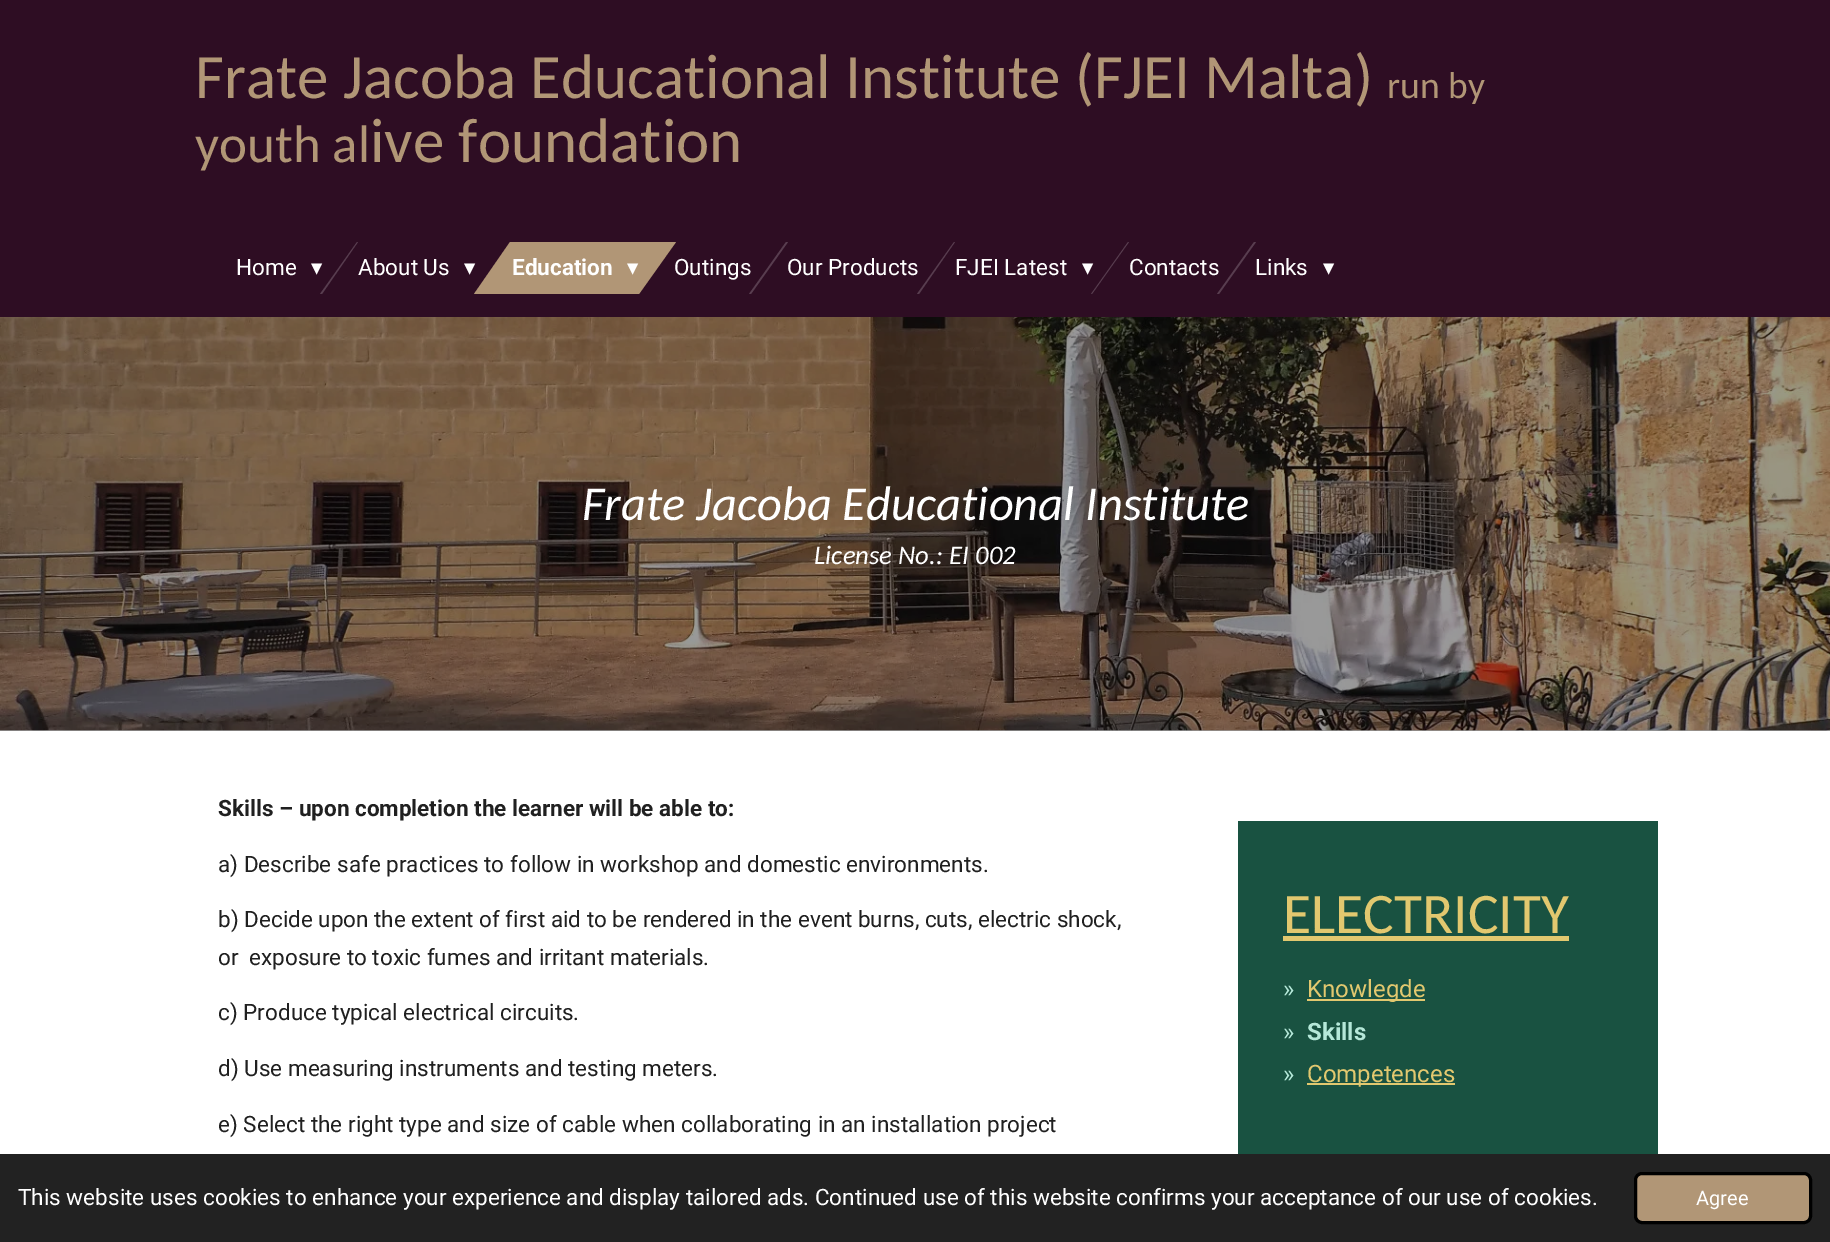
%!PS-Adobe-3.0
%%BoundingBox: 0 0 1830 1242
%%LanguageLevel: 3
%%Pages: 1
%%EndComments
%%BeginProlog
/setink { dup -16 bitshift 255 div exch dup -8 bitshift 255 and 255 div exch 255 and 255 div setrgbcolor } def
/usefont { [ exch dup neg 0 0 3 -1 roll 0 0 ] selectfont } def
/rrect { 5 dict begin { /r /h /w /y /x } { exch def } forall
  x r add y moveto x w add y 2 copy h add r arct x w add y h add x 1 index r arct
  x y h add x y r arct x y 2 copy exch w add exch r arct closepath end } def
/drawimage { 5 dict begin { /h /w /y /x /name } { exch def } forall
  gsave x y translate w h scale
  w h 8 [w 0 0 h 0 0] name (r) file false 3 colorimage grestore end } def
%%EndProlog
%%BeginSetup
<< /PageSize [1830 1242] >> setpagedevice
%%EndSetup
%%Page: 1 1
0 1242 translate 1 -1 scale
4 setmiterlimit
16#FFFFFF setink
0 0 1830 1242 rectfill
16#999999 setink
0 730 1830 1 rectfill
16#2E0D23 setink
0 0 1830 317 rectfill
/Carlito-Regular 63 usefont
16#B19676 setink
195 98 moveto (Frate Jacoba Educational Institute \(FJEI Malta\)) show
/Carlito-Regular 37.5 usefont
1387 98 moveto (run by) show
/Carlito-Regular 53 usefont
195 162 moveto (youth al) show
/Carlito-Regular 63 usefont
370 162 moveto (ive foundation) show
/Roboto-Regular 22.5 usefont
16#FFFFFF setink
236 275 moveto (Home) show
16#583D4F setink
357 242 moveto 358 242 lineto 322 294 lineto 320 294 lineto closepath fill
/DejaVuSans-Regular 22.5 usefont
16#FFFFFF setink
311 275 moveto (▾) show
/Roboto-Regular 22.5 usefont
358 275 moveto (About Us) show
/DejaVuSans-Regular 22.5 usefont
464 275 moveto (▾) show
16#583D4F setink
786 242 moveto 788 242 lineto 751 294 lineto 749 294 lineto closepath fill
/Roboto-Regular 22.5 usefont
16#FFFFFF setink
674 275 moveto (Outings) show
16#B19676 setink
510 242 moveto 676 242 lineto 639 294 lineto 474 294 lineto closepath fill
/Roboto-Bold 22.5 usefont
16#FFFFFF setink
512 275 moveto (Education) show
/DejaVuSans-Regular 22.5 usefont
627 275 moveto (▾) show
16#583D4F setink
954 242 moveto 955 242 lineto 919 294 lineto 917 294 lineto closepath fill
/Roboto-Regular 22.5 usefont
16#FFFFFF setink
787 275 moveto (Our Products) show
955 275 moveto (FJEI Latest) show
16#583D4F setink
1128 242 moveto 1129 242 lineto 1092 294 lineto 1091 294 lineto closepath fill
/DejaVuSans-Regular 22.5 usefont
16#FFFFFF setink
1082 275 moveto (▾) show
16#583D4F setink
1254 242 moveto 1256 242 lineto 1219 294 lineto 1217 294 lineto closepath fill
/Roboto-Regular 22.5 usefont
16#FFFFFF setink
1129 275 moveto (Contacts) show
1255 275 moveto (Links) show
/DejaVuSans-Regular 22.5 usefont
1323 275 moveto (▾) show
(img1.raw) 0 317 1830 414 drawimage
/Carlito-Italic 48.5 usefont
582 520 moveto (Frate Jacoba Educational Institute) show
/Carlito-Italic 26.75 usefont
814 564 moveto (License No.: EI 002) show
/Roboto-Bold 22.5 usefont
16#202020 setink
218 816 moveto (Skills – upon completion the learner will be able to:) show
/Roboto-Regular 22.5 usefont
[
    [(a\) Describe safe practices to follow in workshop and domestic environments.) 218 872]
    [(b\) Decide upon the extent of first aid to be rendered in the event burns, cuts, electric shock,) 218 927]
    [(or) 218 965]
    [(exposure to toxic fumes and irritant materials.) 249 965]
    [(c\) Produce typical electrical circuits.) 218 1020]
    [(d\) Use measuring instruments and testing meters.) 218 1076]
    [(e\) Select the right type and size of cable when collaborating in an installation project) 218 1132]
] { aload pop moveto show } forall
16#195241 setink
1238 821 420 333 rectfill
/Carlito-Regular 57.5 usefont
16#E2C86F setink
1283 933 moveto (ELECTRICITY) show
1283 936 286 5 rectfill
/Roboto-Regular 24 usefont
16#B5E8D9 setink
1283 997 moveto (») show
16#E2C86F setink
1307 999 118 2 rectfill
1307 997 moveto (Knowlegde) show
16#B5E8D9 setink
1283 1040 moveto (») show
/Roboto-Bold 24 usefont
1307 1040 moveto (Skills) show
/Roboto-Regular 24 usefont
1283 1082 moveto (») show
16#E2C86F setink
1307 1083 148 2 rectfill
1307 1082 moveto (Competences) show
16#222222 setink
0 1154 1830 88 rectfill
/Roboto-Regular 22.5 usefont
16#FFFFFF setink
18 1205 moveto (This website uses cookies to enhance your experience and display tailored ads. Continued use of this website confirms your acceptance of our use of cookies.) show
16#B19676 setink
1635.5 1173.5 175 49 6.5 rrect gsave fill grestore
16#000000 setink
3 setlinewidth
stroke
/Roboto-Regular 20 usefont
16#FFFFFF setink
1696 1205 moveto (Agree) show
showpage
%%EOF
